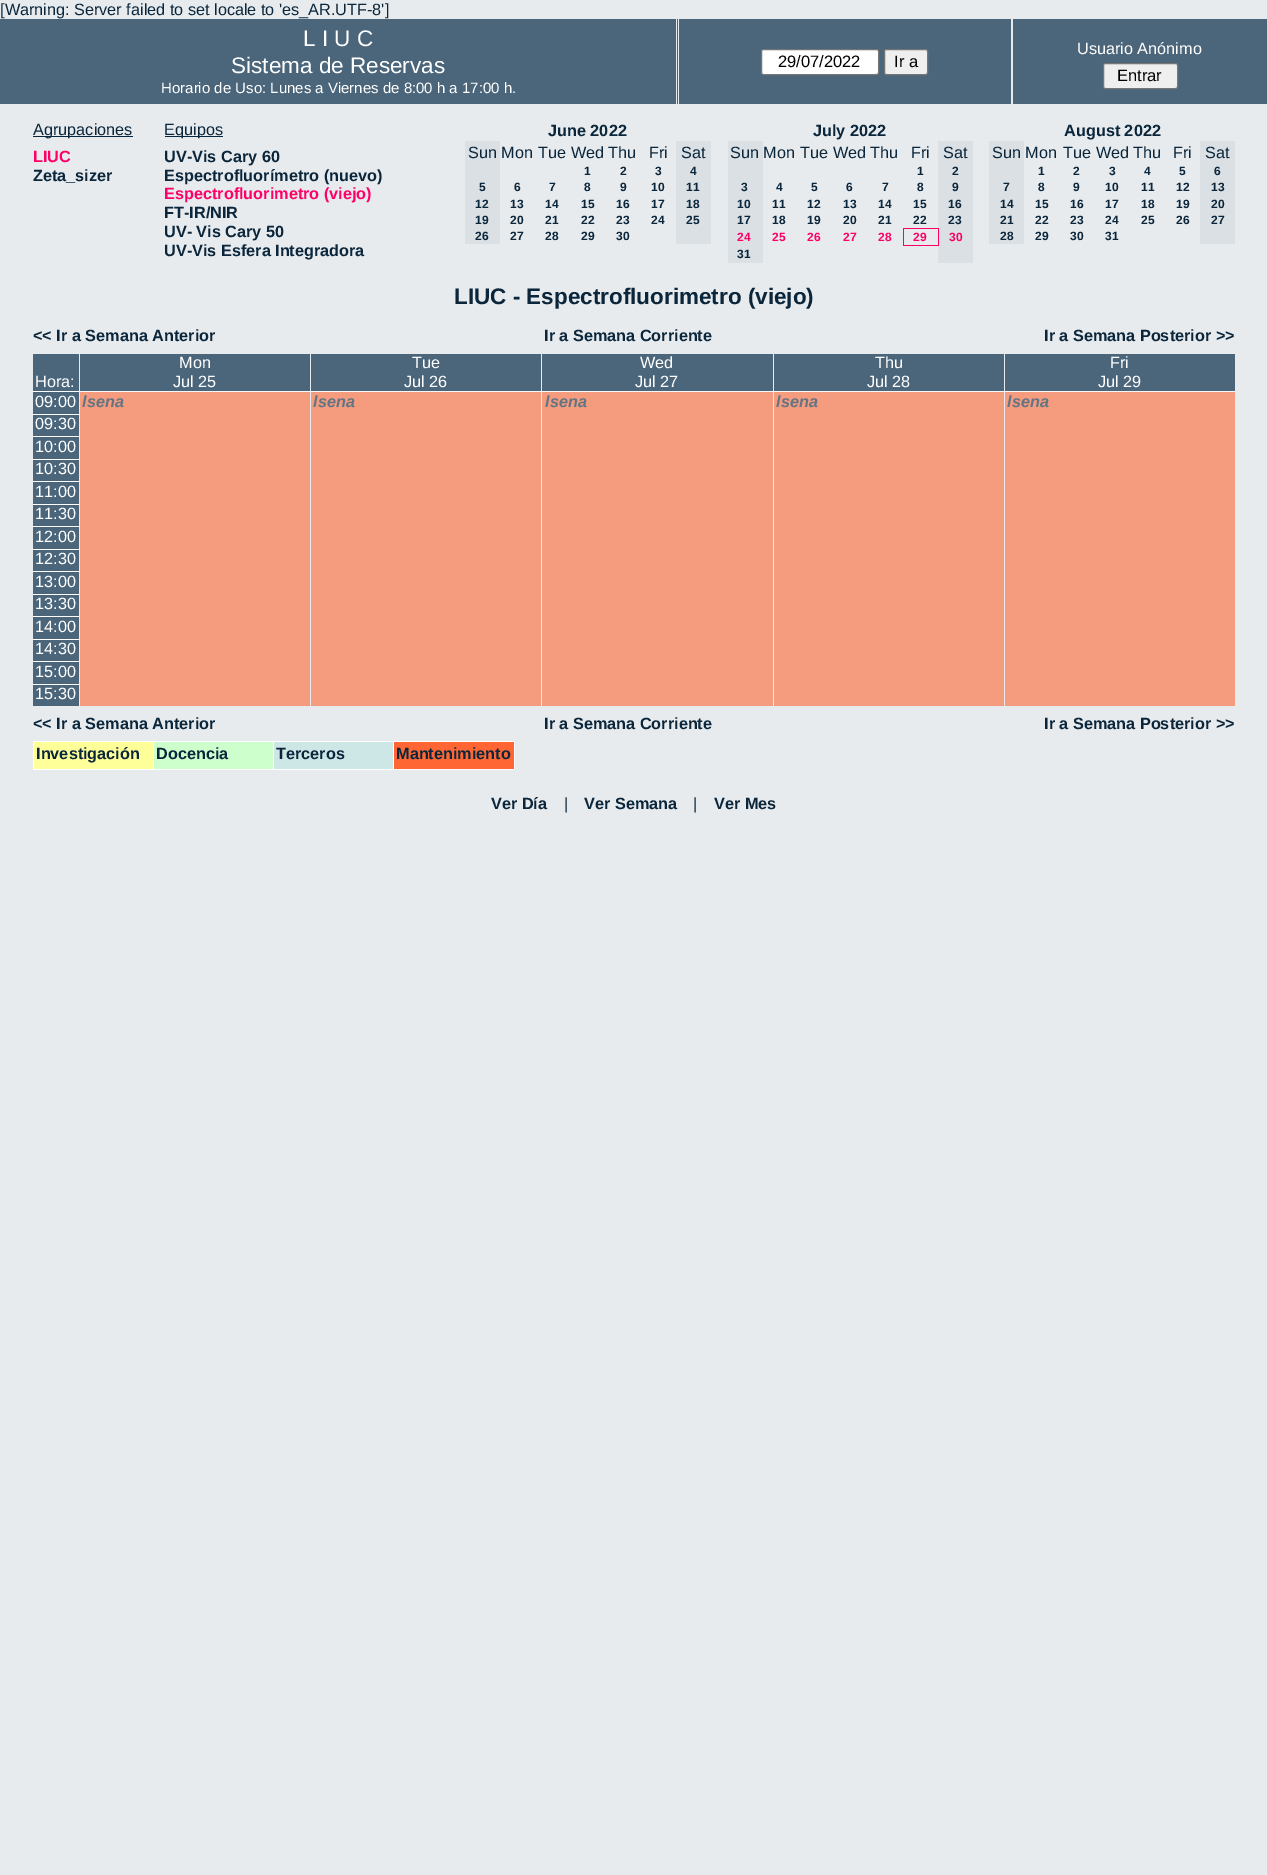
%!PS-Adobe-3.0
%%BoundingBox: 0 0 1267 1875
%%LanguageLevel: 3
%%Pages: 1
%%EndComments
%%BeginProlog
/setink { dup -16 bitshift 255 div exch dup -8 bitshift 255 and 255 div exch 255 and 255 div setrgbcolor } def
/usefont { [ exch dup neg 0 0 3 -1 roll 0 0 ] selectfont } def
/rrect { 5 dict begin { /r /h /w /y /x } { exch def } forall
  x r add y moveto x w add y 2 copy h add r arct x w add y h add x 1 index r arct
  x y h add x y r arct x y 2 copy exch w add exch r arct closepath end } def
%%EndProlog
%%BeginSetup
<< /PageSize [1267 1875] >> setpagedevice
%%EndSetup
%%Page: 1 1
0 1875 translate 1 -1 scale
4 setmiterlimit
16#E7EBEE setink
0 0 1267 1875 rectfill
/LiberationSans-Regular 16.25 usefont
16#0B263B setink
0 15 moveto ([Warning: Server failed to set locale to 'es_AR.UTF-8']) show
16#4B667B setink
0 19 678 85 rectfill
/LiberationSans-Regular 22.5 usefont
16#FFFFFF setink
303 46 moveto (L I U C) show
231 73 moveto (Sistema de Reservas) show
/LiberationSans-Regular 15 usefont
161 93 moveto (Horario de Uso: Lunes a Viernes de 8:00 h a 17:00 h.) show
16#4B667B setink
679 19 332 85 rectfill
16#E7EBEE setink
676 19 1 86 rectfill
16#FFFFFF setink
761.5 49.5 117 25 2 rrect gsave fill grestore
16#767676 setink
stroke
/LiberationSans-Regular 16.5 usefont
16#000000 setink
778 67 moveto (29/07/2022) show
16#EFEFEF setink
884.5 49.5 43 25 2 rrect gsave fill grestore
16#767676 setink
stroke
16#000000 setink
894 67 moveto (Ir a) show
16#4B667B setink
1013 19 254 85 rectfill
/LiberationSans-Regular 16.25 usefont
16#FFFFFF setink
1077 54 moveto (Usuario Anónimo) show
16#EFEFEF setink
1103.5 63.5 74 25 2 rrect gsave fill grestore
16#767676 setink
stroke
/LiberationSans-Regular 16.5 usefont
16#000000 setink
1117 81 moveto (Entrar) show
16#0B263B setink
33 136 100 1 rectfill
/LiberationSans-Regular 16.25 usefont
33 135 moveto (Agrupaciones) show
/LiberationSans-Bold 16.25 usefont
16#FF0066 setink
33 162 moveto (LIUC) show
16#0B263B setink
33 181 moveto (Zeta_sizer) show
165 136 58 1 rectfill
/LiberationSans-Regular 16.25 usefont
164 135 moveto (Equipos) show
/LiberationSans-Bold 16.25 usefont
164 162 moveto (UV-Vis Cary 60) show
164 181 moveto (Espectrofluorímetro \(nuevo\)) show
16#FF0066 setink
164 199 moveto (Espectrofluorimetro \(viejo\)) show
16#0B263B setink
[
    [(FT-IR/NIR) 164 218]
    [(UV- Vis Cary 50) 164 237]
    [(UV-Vis Esfera Integradora) 164 256]
    [(June 2022) 548 136]
] { aload pop moveto show } forall
16#DAE0E4 setink
465 141 35 103 rectfill
/LiberationSans-Regular 16.25 usefont
16#0B263B setink
[
    [(Sun Mon) 468 158]
    [(Tue Wed Thu) 538 158]
    [(Fri) 649 158]
] { aload pop moveto show } forall
16#DAE0E4 setink
676 141 35 103 rectfill
16#0B263B setink
681 158 moveto (Sat) show
/LiberationSans-Bold 12 usefont
[
    [(1) 584 175]
    [(2) 620 175]
    [(3) 655 175]
    [(4) 690 175]
    [(5) 479 191]
    [(6) 514 191]
    [(7) 549 191]
    [(8) 584 191]
    [(9) 620 191]
    [(10) 651 191]
    [(11) 686 191]
    [(12) 475 208]
    [(13) 510 208]
    [(14) 545 208]
    [(15) 581 208]
    [(16) 616 208]
    [(17) 651 208]
    [(18) 686 208]
    [(19) 475 224]
    [(20) 510 224]
    [(21) 545 224]
    [(22) 581 224]
    [(23) 616 224]
    [(24) 651 224]
    [(25) 686 224]
    [(26) 475 240]
    [(27) 510 240]
    [(28) 545 240]
    [(29) 581 240]
    [(30) 616 240]
] { aload pop moveto show } forall
/LiberationSans-Bold 16.25 usefont
813 136 moveto (July 2022) show
16#DAE0E4 setink
728 141 35 122 rectfill
/LiberationSans-Regular 16.25 usefont
16#0B263B setink
[
    [(Sun Mon) 730 158]
    [(Tue Wed Thu) 800 158]
    [(Fri) 911 158]
] { aload pop moveto show } forall
16#DAE0E4 setink
938 141 35 88 rectfill
16#0B263B setink
943 158 moveto (Sat) show
/LiberationSans-Bold 12 usefont
[
    [(1) 917 175]
    [(2) 952 175]
    [(3) 741 191]
    [(4) 776 191]
    [(5) 811 191]
    [(6) 846 191]
    [(7) 882 191]
    [(8) 917 191]
    [(9) 952 191]
    [(10) 737 208]
    [(11) 772 208]
    [(12) 807 208]
    [(13) 843 208]
    [(14) 878 208]
    [(15) 913 208]
    [(16) 948 208]
    [(17) 737 224]
    [(18) 772 224]
    [(19) 807 224]
    [(20) 843 224]
    [(21) 878 224]
    [(22) 913 224]
    [(23) 948 224]
] { aload pop moveto show } forall
16#FF0066 setink
[
    [(24) 737 241]
    [(25) 772 241]
    [(26) 807 241]
    [(27) 843 241]
    [(28) 878 241]
] { aload pop moveto show } forall
[
    [903 228 36 1 16#FF0066]
    [938 228 1 18 16#FF0066]
    [903 245 36 1 16#FF0066]
    [903 228 1 18 16#FF0066]
] { aload pop setink rectfill } forall
913 241 moveto (29) show
16#DAE0E4 setink
939 229 34 17 rectfill
16#FF0066 setink
949 241 moveto (30) show
16#0B263B setink
737 258 moveto (31) show
16#DAE0E4 setink
938 246 35 17 rectfill
/LiberationSans-Bold 16.25 usefont
16#0B263B setink
1064 136 moveto (August 2022) show
16#DAE0E4 setink
989 141 35 103 rectfill
/LiberationSans-Regular 16.25 usefont
16#0B263B setink
[
    [(Sun Mon) 992 158]
    [(Tue Wed Thu) 1063 158]
    [(Fri) 1173 158]
] { aload pop moveto show } forall
16#DAE0E4 setink
1200 141 35 103 rectfill
16#0B263B setink
1205 158 moveto (Sat) show
/LiberationSans-Bold 12 usefont
[
    [(1) 1038 175]
    [(2) 1073 175]
    [(3) 1109 175]
    [(4) 1144 175]
    [(5) 1179 175]
    [(6) 1214 175]
    [(7) 1003 191]
    [(8) 1038 191]
    [(9) 1073 191]
    [(10) 1105 191]
    [(11) 1141 191]
    [(12) 1176 191]
    [(13) 1211 191]
    [(14) 1000 208]
    [(15) 1035 208]
    [(16) 1070 208]
    [(17) 1105 208]
    [(18) 1141 208]
    [(19) 1176 208]
    [(20) 1211 208]
    [(21) 1000 224]
    [(22) 1035 224]
    [(23) 1070 224]
    [(24) 1105 224]
    [(25) 1141 224]
    [(26) 1176 224]
    [(27) 1211 224]
    [(28) 1000 240]
    [(29) 1035 240]
    [(30) 1070 240]
    [(31) 1105 240]
] { aload pop moveto show } forall
/LiberationSans-Bold 22.5 usefont
454 304 moveto (LIUC - Espectrofluorimetro \(viejo\)) show
/LiberationSans-Bold 16.25 usefont
[
    [(<< Ir a Semana Anterior) 33 341]
    [(Ir a Semana Corriente) 544 341]
    [(Ir a Semana Posterior >>) 1044 341]
] { aload pop moveto show } forall
16#4B667B setink
33 354 46 37 rectfill
/LiberationSans-Regular 16.25 usefont
16#FFFFFF setink
35 387 moveto (Hora:) show
16#4B667B setink
80 354 230 37 rectfill
16#FFFFFF setink
179 368 moveto (Mon) show
173 387 moveto (Jul 25) show
16#4B667B setink
311 354 230 37 rectfill
16#FFFFFF setink
412 368 moveto (Tue) show
404 387 moveto (Jul 26) show
16#4B667B setink
542 354 231 37 rectfill
16#FFFFFF setink
640 368 moveto (Wed) show
635 387 moveto (Jul 27) show
16#4B667B setink
774 354 230 37 rectfill
16#FFFFFF setink
875 368 moveto (Thu) show
867 387 moveto (Jul 28) show
16#4B667B setink
1005 354 230 37 rectfill
16#FFFFFF setink
1110 368 moveto (Fri) show
1098 387 moveto (Jul 29) show
16#4B667B setink
33 392 46 22 rectfill
16#FFFFFF setink
33 391 46 1 rectfill
35 407 moveto (09:00) show
[
    [80 392 230 314 16#F59B7E]
    [79 391 1156 1 16#F5F7F8]
    [79 391 1 1 16#E7EBEE]
] { aload pop setink rectfill } forall
/LiberationSans-BoldItalic 16.25 usefont
16#637583 setink
82 407 moveto (lsena) show
16#F59B7E setink
311 392 230 314 rectfill
16#E7EBEE setink
310 391 1 1 rectfill
16#637583 setink
313 407 moveto (lsena) show
16#F59B7E setink
542 392 231 314 rectfill
16#E7EBEE setink
541 391 1 1 rectfill
16#637583 setink
545 407 moveto (lsena) show
16#F59B7E setink
774 392 230 314 rectfill
16#E7EBEE setink
773 391 1 1 rectfill
16#637583 setink
776 407 moveto (lsena) show
16#F59B7E setink
1005 392 230 314 rectfill
16#E7EBEE setink
1004 391 1 1 rectfill
16#637583 setink
1007 407 moveto (lsena) show
16#4B667B setink
33 415 46 21 rectfill
16#FFFFFF setink
33 414 46 1 rectfill
/LiberationSans-Regular 16.25 usefont
35 429 moveto (09:30) show
16#4B667B setink
33 437 46 22 rectfill
16#FFFFFF setink
33 436 46 1 rectfill
35 452 moveto (10:00) show
16#4B667B setink
33 460 46 21 rectfill
16#FFFFFF setink
33 459 46 1 rectfill
35 474 moveto (10:30) show
16#4B667B setink
33 482 46 22 rectfill
16#FFFFFF setink
33 481 46 1 rectfill
35 497 moveto (11:00) show
16#4B667B setink
33 505 46 21 rectfill
16#FFFFFF setink
33 504 46 1 rectfill
35 519 moveto (11:30) show
16#4B667B setink
33 527 46 22 rectfill
16#FFFFFF setink
33 526 46 1 rectfill
35 542 moveto (12:00) show
16#4B667B setink
33 550 46 21 rectfill
16#FFFFFF setink
33 549 46 1 rectfill
35 564 moveto (12:30) show
16#4B667B setink
33 572 46 22 rectfill
16#FFFFFF setink
33 571 46 1 rectfill
35 587 moveto (13:00) show
16#4B667B setink
33 595 46 21 rectfill
16#FFFFFF setink
33 594 46 1 rectfill
35 609 moveto (13:30) show
16#4B667B setink
33 617 46 22 rectfill
16#FFFFFF setink
33 616 46 1 rectfill
35 632 moveto (14:00) show
16#4B667B setink
33 640 46 21 rectfill
16#FFFFFF setink
33 639 46 1 rectfill
35 654 moveto (14:30) show
16#4B667B setink
33 662 46 22 rectfill
16#FFFFFF setink
33 661 46 1 rectfill
35 677 moveto (15:00) show
16#4B667B setink
33 685 46 21 rectfill
16#FFFFFF setink
33 684 46 1 rectfill
35 699 moveto (15:30) show
/LiberationSans-Bold 16.25 usefont
16#0B263B setink
[
    [(<< Ir a Semana Anterior) 33 729]
    [(Ir a Semana Corriente) 544 729]
    [(Ir a Semana Posterior >>) 1044 729]
] { aload pop moveto show } forall
[
    [34 742 119 27 16#FFFF99]
    [393 741 122 1 16#FFFFFF]
    [514 741 1 29 16#FFFFFF]
    [393 769 122 1 16#FFFFFF]
    [393 741 1 29 16#FFFFFF]
    [273 741 121 1 16#FFFFFF]
    [273 769 121 1 16#FFFFFF]
    [273 741 1 29 16#FFFFFF]
    [153 741 121 1 16#FFFFFF]
    [153 769 121 1 16#FFFFFF]
    [153 741 1 29 16#FFFFFF]
    [33 741 121 1 16#FFFFFF]
    [33 769 121 1 16#FFFFFF]
    [33 741 1 29 16#FFFFFF]
] { aload pop setink rectfill } forall
16#0B263B setink
36 759 moveto (Investigación) show
16#CCFFCC setink
154 742 119 27 rectfill
16#0B263B setink
156 759 moveto (Docencia) show
16#CDE6E6 setink
274 742 119 27 rectfill
16#0B263B setink
276 759 moveto (Terceros) show
16#FF6633 setink
394 742 120 27 rectfill
16#0B263B setink
396 759 moveto (Mantenimiento) show
491 809 moveto (Ver Día) show
/LiberationSans-Regular 16.25 usefont
564 809 moveto (|) show
/LiberationSans-Bold 16.25 usefont
584 809 moveto (Ver Semana) show
/LiberationSans-Regular 16.25 usefont
693 809 moveto (|) show
/LiberationSans-Bold 16.25 usefont
714 809 moveto (Ver Mes) show
showpage
%%EOF
